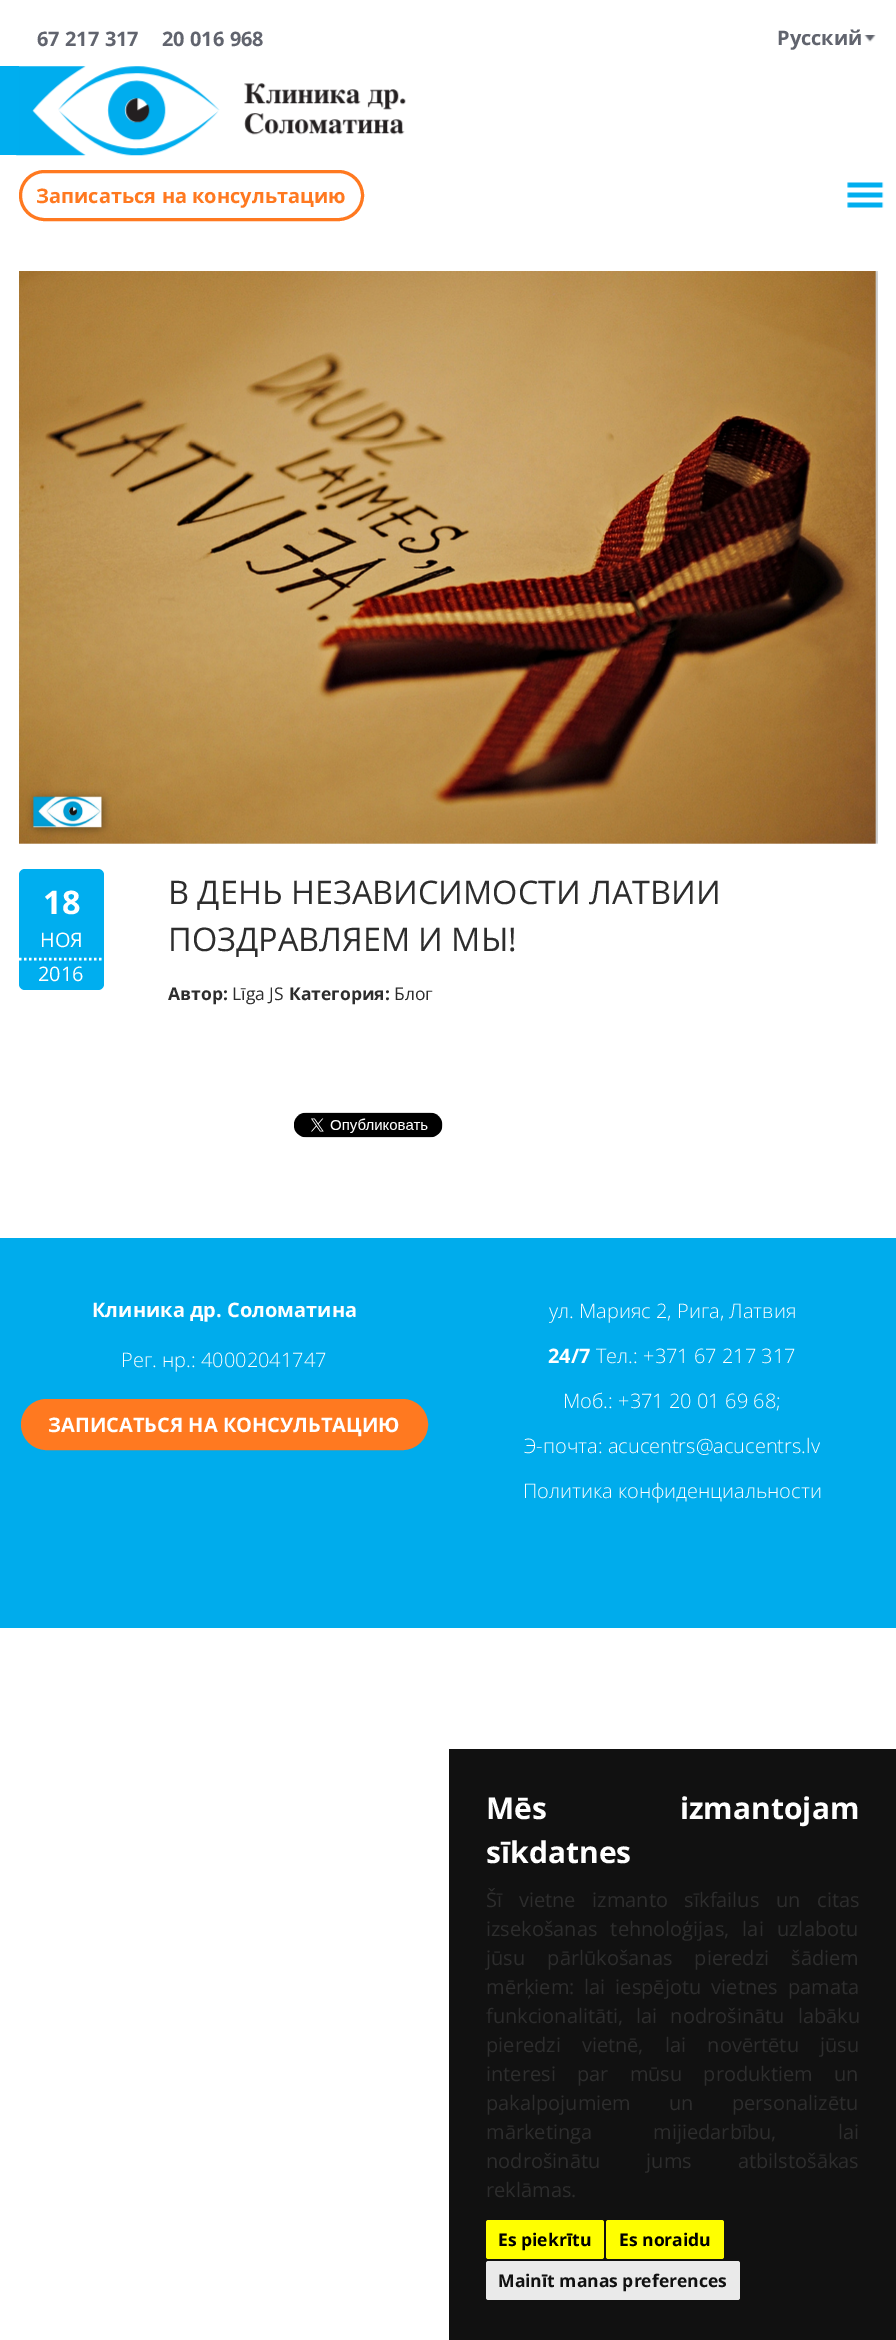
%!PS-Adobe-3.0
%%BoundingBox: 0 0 896 2340
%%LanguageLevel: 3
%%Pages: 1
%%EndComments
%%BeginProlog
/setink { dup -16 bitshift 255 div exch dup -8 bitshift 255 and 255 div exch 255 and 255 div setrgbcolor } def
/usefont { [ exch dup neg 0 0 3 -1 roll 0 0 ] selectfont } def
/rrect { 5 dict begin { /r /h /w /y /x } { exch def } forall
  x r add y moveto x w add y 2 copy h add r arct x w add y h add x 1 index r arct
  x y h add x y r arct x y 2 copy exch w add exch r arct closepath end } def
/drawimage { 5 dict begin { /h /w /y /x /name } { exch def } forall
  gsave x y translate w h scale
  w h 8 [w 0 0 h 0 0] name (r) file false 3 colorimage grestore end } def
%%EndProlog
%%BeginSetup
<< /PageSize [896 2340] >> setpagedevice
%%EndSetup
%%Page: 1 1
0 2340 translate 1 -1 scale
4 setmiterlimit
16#FFFFFF setink
0 0 896 2340 rectfill
/OpenSans-Bold 20 usefont
16#61646E setink
[
    [(67 217 317) 37 46]
    [(20 016 968) 162 46]
    [(Русский) 777 45]
] { aload pop moveto show } forall
(img1.raw) 864 35 12 7 drawimage
(img2.raw) 16 66 390 90 drawimage
16#00AEEF setink
0 66 19 89 rectfill
16#FF7920 setink
3 setlinewidth
20.5 171.5 342 48 24 rrect stroke
36 203 moveto (Записаться на консультацию) show
(img3.raw) 847 182 37 26 drawimage
(img4.raw) 19 271 859 573 drawimage
16#00AEEF setink
19 869 85 121 6 rrect fill
/OpenSans-Bold 32.5 usefont
16#FFFFFF setink
43 914 moveto (18) show
/OpenSans-Regular 20 usefont
40 947 moveto (НОЯ) show
gsave
19 869 85 121 6 rrect clip newpath
2.5 setlinewidth
[2.5 2.5] 0 setdash
19 959 moveto 149 959 lineto stroke
grestore
38 981 moveto (2016) show
/OpenSans-Regular 32.5 usefont
16#2D2D2D setink
168 904 moveto (В ДЕНЬ НЕЗАВИСИМОСТИ ЛАТВИИ) show
168 951 moveto (ПОЗДРАВЛЯЕМ И МЫ!) show
/OpenSans-Bold 17.5 usefont
168 1000 moveto (Автор:) show
/OpenSans-Regular 17.5 usefont
232 1000 moveto (Līga JS) show
/OpenSans-Bold 17.5 usefont
289 1000 moveto (Категория:) show
/OpenSans-Regular 17.5 usefont
394 1000 moveto (Блог) show
(img5.raw) 294 1112 149 26 drawimage
16#00ACEC setink
0 1238 896 390 rectfill
/OpenSans-Bold 20 usefont
16#FFFFFF setink
92 1317 moveto (Клиника др. Соломатина) show
/OpenSans-Light 20 usefont
121 1367 moveto (Рег. нр.: 40002041747) show
16#FF7920 setink
22.5 1400.5 404 48 24 rrect gsave fill grestore
stroke
/OpenSans-Bold 20 usefont
16#FFFFFF setink
48 1432 moveto (ЗАПИСАТЬСЯ НА КОНСУЛЬТАЦИЮ) show
/OpenSans-Light 20 usefont
549 1318 moveto (ул. Марияс 2, Рига, Латвия) show
/OpenSans-Bold 20 usefont
548 1363 moveto (24/7) show
/OpenSans-Light 20 usefont
[
    [(Тел.: +371 67 217 317) 596 1363]
    [(Моб.: +371 20 01 69 68;) 563 1408]
    [(Э-почта: acucentrs@acucentrs.lv) 524 1453]
    [(Политика конфиденциальности) 523 1498]
] { aload pop moveto show } forall
16#111111 setink
449 1749 447 591 rectfill
/OpenSans-Bold 30 usefont
16#FFFFFF setink
486 1819 moveto 125 0 32 (Mēs izmantojam) widthshow
486 1863 moveto (sīkdatnes) show
/OpenSans-Regular 20 usefont
16#2D2D2D setink
486 1907 moveto 11.5 0 32 (Šī vietne izmanto sīkfailus un citas) widthshow
486 1936 moveto 8 0 32 (izsekošanas tehnoloģijas, lai uzlabotu) widthshow
486 1965 moveto 17 0 32 (jūsu pārlūkošanas pieredzi šādiem) widthshow
486 1994 moveto (mērķiem:) show
584 1994 moveto 5 0 32 (lai iespējotu vietnes pamata) widthshow
486 2023 moveto (funkcionalitāti,) show
636 2023 moveto 8 0 32 (lai nodrošinātu labāku) widthshow
486 2052 moveto 16 0 32 (pieredzi vietnē) widthshow
638 2052 moveto (,) show
665 2052 moveto 16 0 32 (lai novērtētu jūsu) widthshow
486 2081 moveto 16 0 32 (interesi par mūsu produktiem un) widthshow
486 2110 moveto 33 0 32 (pakalpojumiem un personalizētu) widthshow
486 2139 moveto 56 0 32 (mārketinga mijiedarbību) widthshow
771 2139 moveto (,) show
838 2139 moveto (lai) show
486 2168 moveto 41 0 32 (nodrošinātu jums atbilstošākas) widthshow
486 2197 moveto (reklāmas.) show
16#FFFF00 setink
486 2220 118 39 2.5 rrect fill
/OpenSans-Bold 17.5 usefont
16#000000 setink
498 2246 moveto (Es piekrītu) show
16#FFFF00 setink
606 2220 118 39 2.5 rrect fill
16#000000 setink
619 2246 moveto (Es noraidu) show
16#EAEAEA setink
486 2261 254 39 2.5 rrect fill
16#111111 setink
498 2287 moveto (Mainīt manas preferences) show
showpage
%%EOF
